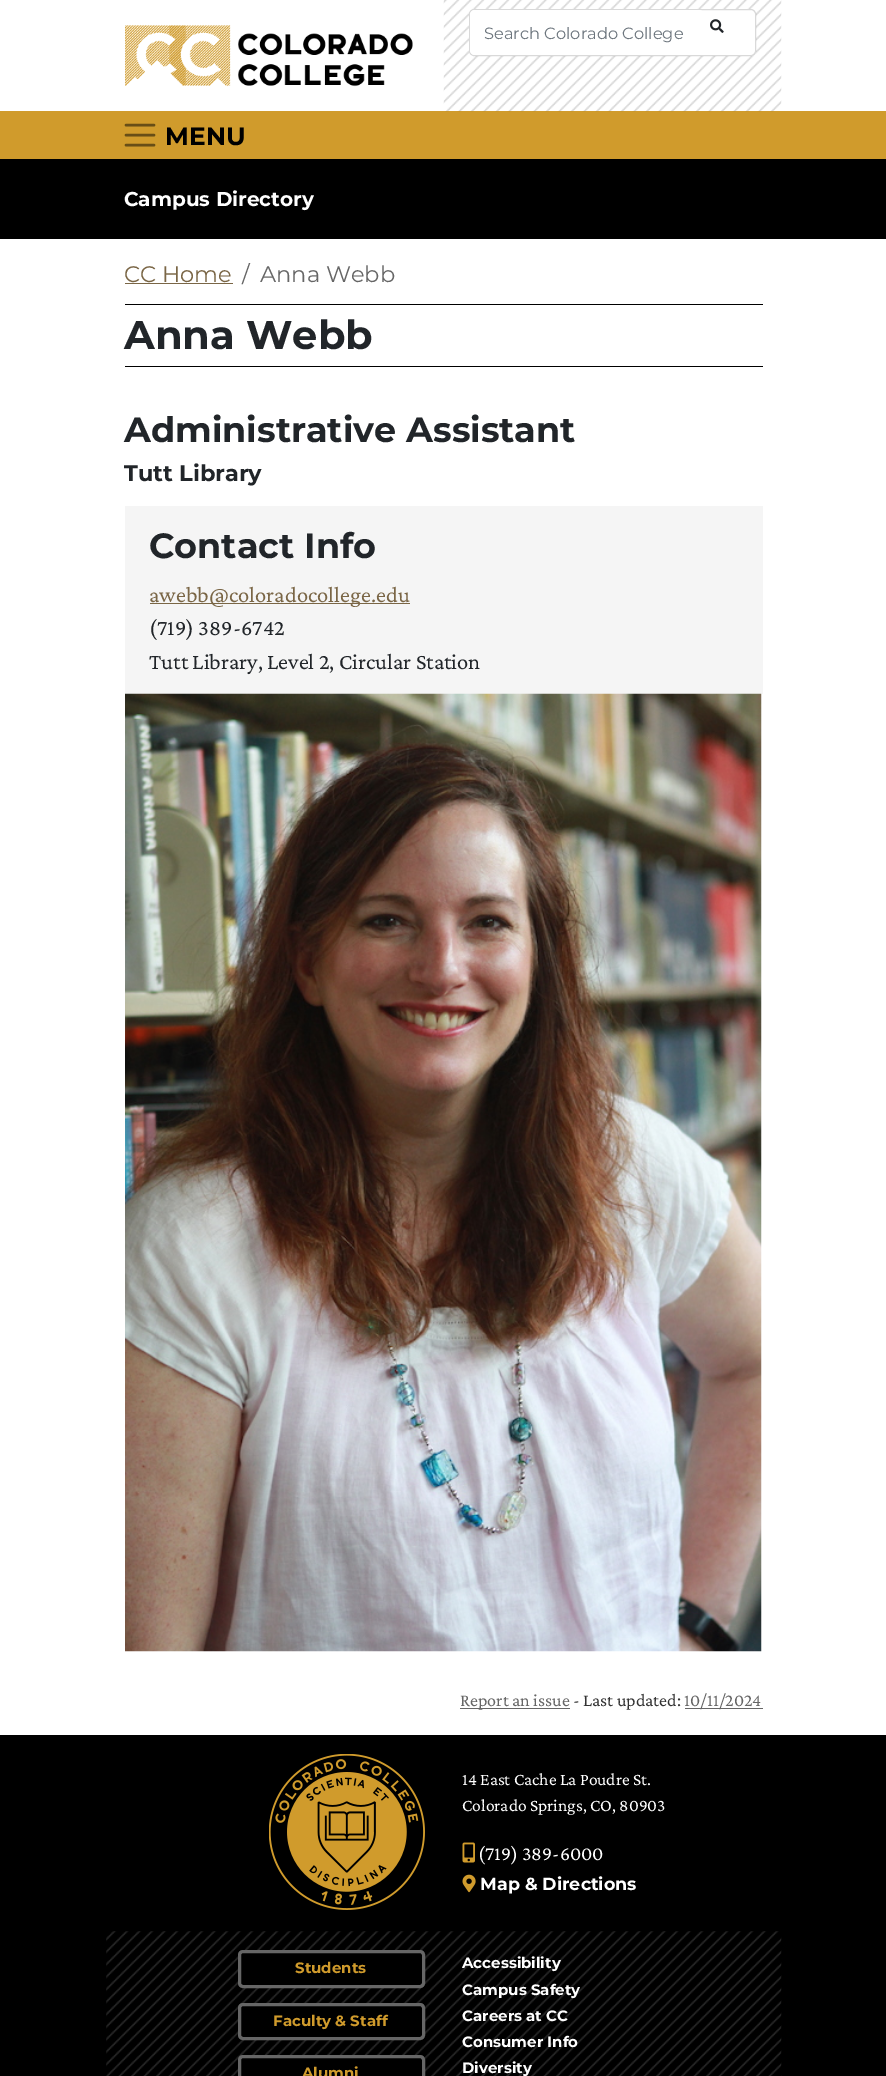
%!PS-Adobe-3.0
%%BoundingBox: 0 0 886 2076
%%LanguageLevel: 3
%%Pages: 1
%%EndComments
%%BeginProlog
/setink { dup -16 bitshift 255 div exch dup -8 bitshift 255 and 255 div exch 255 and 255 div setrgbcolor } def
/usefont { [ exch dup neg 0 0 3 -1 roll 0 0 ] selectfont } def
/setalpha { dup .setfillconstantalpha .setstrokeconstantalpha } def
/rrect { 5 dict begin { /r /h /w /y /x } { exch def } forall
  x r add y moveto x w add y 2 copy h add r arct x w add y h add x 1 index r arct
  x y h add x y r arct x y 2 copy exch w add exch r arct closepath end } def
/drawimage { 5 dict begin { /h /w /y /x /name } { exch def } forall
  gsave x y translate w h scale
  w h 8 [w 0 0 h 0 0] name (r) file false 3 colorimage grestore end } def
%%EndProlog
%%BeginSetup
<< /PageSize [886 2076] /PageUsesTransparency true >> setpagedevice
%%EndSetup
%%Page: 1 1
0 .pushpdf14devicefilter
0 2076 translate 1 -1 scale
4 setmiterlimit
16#FFFFFF setink
0 0 886 2076 rectfill
(img1.raw) 125 25 288 62 drawimage
16#D09B2C setink
0 111 886 48 rectfill
(img2.raw) 443 0 339 112 drawimage
16#FFFFFF setink
469 9 287 47 5 rrect fill
0.15 setalpha
16#000000 setink
469.5 9.5 286 46 4.5 rrect stroke
1 setalpha
16#FFFFFF setink
470 10 234 45 5 rrect fill
/Montserrat-Regular 16.25 usefont
16#6C757D setink
484 39 moveto (Search Colorado College) show
(img3.raw) 710 19 14 14 drawimage
16#684E16 setink
2.5 setlinewidth
1 setlinecap
126 125 moveto 154 125 lineto 126 135 moveto 154 135 lineto 126 145 moveto 154 145 lineto stroke
/Montserrat-Bold 25 usefont
16#000000 setink
165 145 moveto (MENU) show
0 159 886 80 rectfill
/Montserrat-Bold 20 usefont
16#FFFFFF setink
124 206 moveto (Campus Directory) show
/Montserrat-Regular 22.5 usefont
16#7A6646 setink
124 282 moveto (CC Home) show
125 283 108 1 rectfill
16#666666 setink
242 282 moveto (/) show
260 282 moveto (Anna Webb) show
16#000000 setink
125 304 638 1 rectfill
125 366 638 1 rectfill
/Montserrat-Bold 40 usefont
16#212529 setink
124 349 moveto (Anna Webb) show
/Montserrat-Bold 35 usefont
124 442 moveto (Administrative Assistant) show
/Montserrat-Bold 22.5 usefont
124 481 moveto (Tutt Library) show
16#F5F5F5 setink
125 506 638 188 rectfill
/Montserrat-Bold 35 usefont
16#212529 setink
149 558 moveto (Contact Info) show
16#7A6645 setink
150 603 260 1 rectfill
/CrimsonPro-Regular 22.5 usefont
16#7A6646 setink
149 602 moveto (awebb@coloradocollege.edu) show
16#212529 setink
149 635 moveto (\(719\) 389-6742) show
149 669 moveto (Tutt Library, Level 2, Circular Station) show
(img4.raw) 125 693 637 959 drawimage
16#666666 setink
460 1708 110 1 rectfill
/CrimsonPro-Regular 18 usefont
460 1706 moveto (Report an issue) show
16#333333 setink
573 1706 moveto (- Last updated:) show
16#666666 setink
685 1708 78 1 rectfill
684 1706 moveto (10/11/2024) show
16#000000 setink
0 1735 886 341 rectfill
(img5.raw) 269 1754 156 156 drawimage
/CrimsonPro-Regular 17.5 usefont
16#FFFFFF setink
462 1785 moveto (14 East Cache La Poudre St.) show
462 1811 moveto (Colorado Springs, CO, 80903) show
(img6.raw) 462 1842 13 21 drawimage
/CrimsonPro-Regular 20 usefont
478 1860 moveto (\(719\) 389-6000) show
(img7.raw) 462 1874 14 19 drawimage
/Montserrat-Bold 17.5 usefont
480 1890 moveto (Map & Directions) show
(img8.raw) 106 1931 676 145 drawimage
16#000000 setink
239.5 1951.5 184 35 3.5 rrect gsave fill grestore
16#666666 setink
3 setlinewidth
0 setlinecap
stroke
/Montserrat-Bold 15 usefont
16#D09B2C setink
295 1973 moveto (Students) show
16#000000 setink
239.5 2004.5 184 34 3.5 rrect gsave fill grestore
16#666666 setink
stroke
16#D09B2C setink
273 2026 moveto (Faculty & Staff) show
16#000000 setink
239.5 2056.5 184 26 3.5 rrect gsave fill grestore
16#666666 setink
stroke
16#D09B2C setink
302 2078 moveto (Alumni) show
16#FFFFFF setink
[
    [(Accessibility) 462 1968]
    [(Campus Safety) 462 1995]
    [(Careers at CC) 462 2021]
    [(Consumer Info) 462 2047]
    [(Diversity) 462 2073]
] { aload pop moveto show } forall
.poppdf14devicefilter showpage
%%EOF
